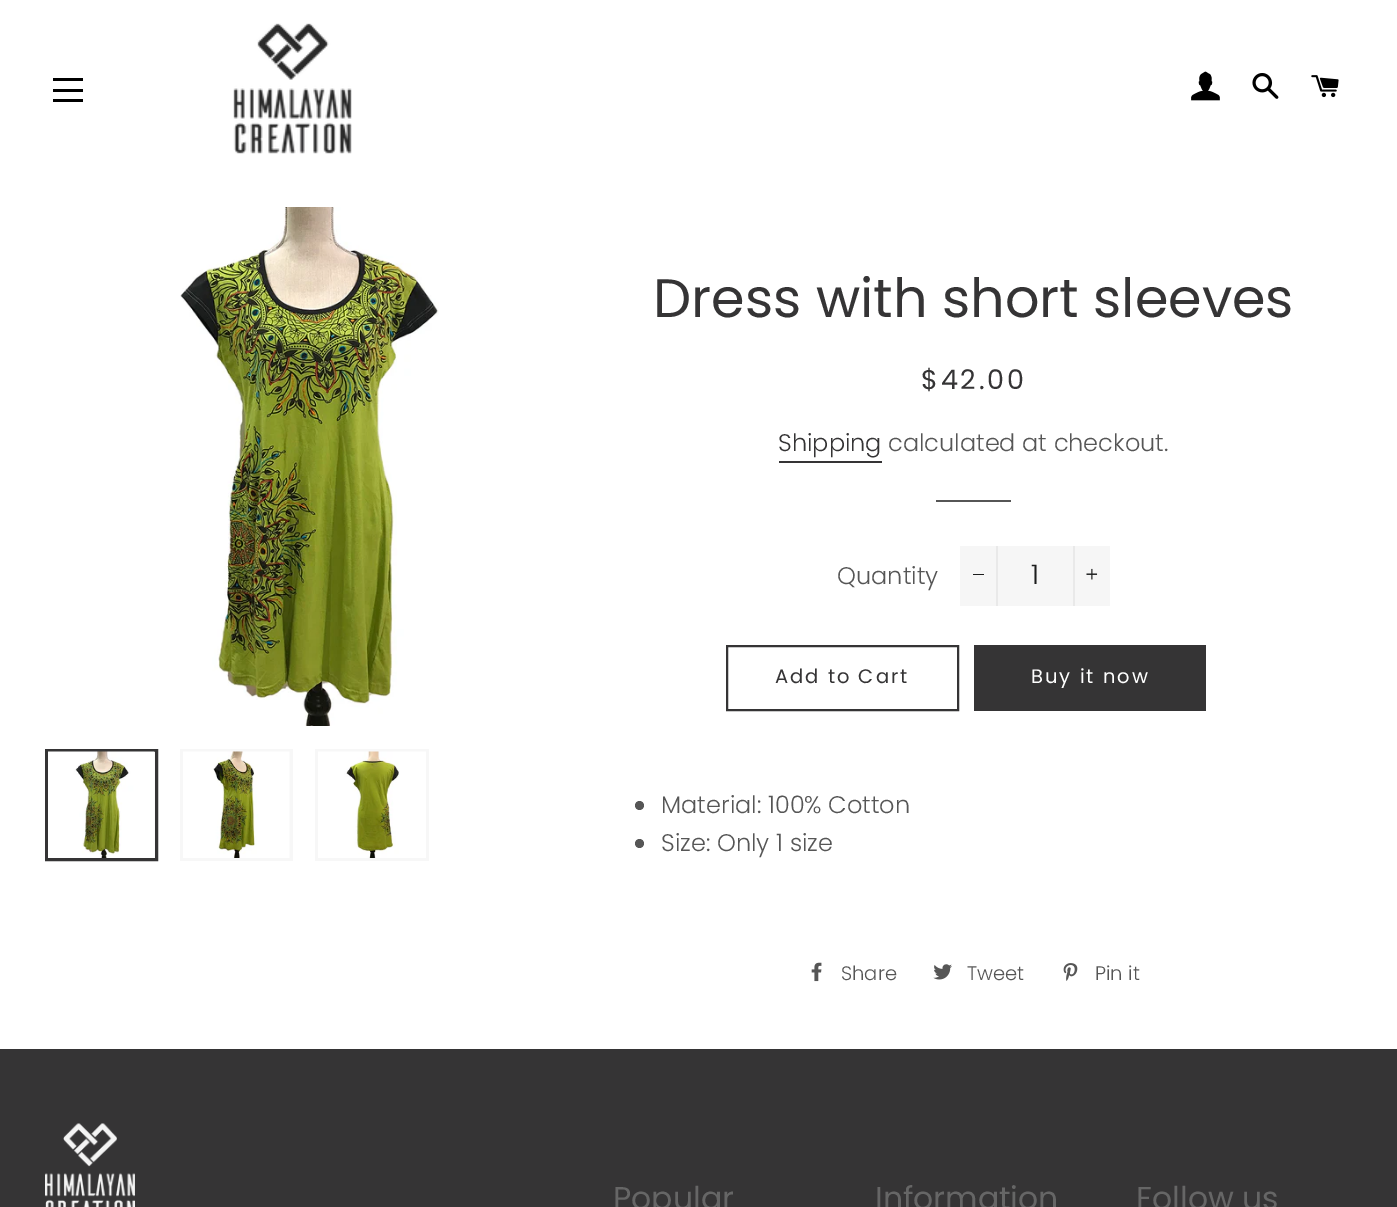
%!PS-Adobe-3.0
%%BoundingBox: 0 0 1397 1207
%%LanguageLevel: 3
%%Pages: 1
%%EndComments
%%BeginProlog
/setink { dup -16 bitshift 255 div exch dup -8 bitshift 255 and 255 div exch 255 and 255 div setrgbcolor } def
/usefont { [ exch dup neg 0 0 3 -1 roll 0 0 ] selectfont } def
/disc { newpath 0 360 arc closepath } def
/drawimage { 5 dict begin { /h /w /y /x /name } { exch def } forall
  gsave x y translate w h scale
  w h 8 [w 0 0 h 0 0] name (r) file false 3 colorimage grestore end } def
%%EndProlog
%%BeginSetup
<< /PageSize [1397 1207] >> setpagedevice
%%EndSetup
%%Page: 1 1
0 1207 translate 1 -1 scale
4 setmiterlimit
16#FFFFFF setink
0 0 1397 1207 rectfill
[
    [53 78 30 3 16#000000]
    [53 89 30 3 16#000000]
    [53 99 30 3 16#000000]
] { aload pop setink rectfill } forall
(img1.raw) 233 23 119 131 drawimage
(img2.raw) 1191 71 29 30 drawimage
(img3.raw) 1252 73 27 26 drawimage
(img4.raw) 1311 75 28 23 drawimage
(img5.raw) 180 207 259 519 drawimage
16#F7F7F7 setink
154 752 1 106 rectfill
16#353435 setink
3 setlinewidth
46.5 750.5 110 109 rectstroke
(img6.raw) 48 751 107 107 drawimage
16#F7F7F7 setink
180 749 113 112 rectfill
(img7.raw) 183 751 107 107 drawimage
315 749 114 112 rectfill
(img8.raw) 318 751 108 107 drawimage
/Poppins-Regular 54 usefont
16#353435 setink
653 317 moveto (Dress with short sleeves) show
/Poppins-Regular 27 usefont
921 389 moveto 2.75 0 ($42.00) ashow
/Poppins-Light 24 usefont
778 451 moveto (Shipping) show
779 461 103 2 rectfill
16#565656 setink
888 451 moveto (calculated at checkout.) show
936 500 75 2 rectfill
837 584 moveto (Quantity) show
[
    [960 546 150 60 16#F6F6F6]
    [996 546 2 60 16#E9E9E9]
    [973 574 11 1 16#1C1D1D]
] { aload pop setink rectfill } forall
/Poppins-Light 27 usefont
1031 584 moveto (1) show
16#E9E9E9 setink
1073 546 2 60 rectfill
(img9.raw) 1086 568 12 12 drawimage
16#353435 setink
2 setlinewidth
727 646 231 64 rectstroke
/Poppins-Regular 19.5 usefont
775 683 moveto 2 0 (Add to Cart) ashow
974 645 232 66 rectfill
16#FFFFFF setink
1031 683 moveto 2 0 (Buy it now) ashow
16#565656 setink
639.5 805.5 4.5 disc fill
/Poppins-Light 24 usefont
661 813 moveto (Material: 100% Cotton) show
639.5 843.5 4.5 disc fill
661 851 moveto (Size: Only 1 size) show
(img10.raw) 811 962 11 20 drawimage
/Poppins-Light 19.5 usefont
841 980 moveto (Share) show
(img11.raw) 933 964 19 16 drawimage
967 980 moveto (Tweet) show
(img12.raw) 1063 963 15 18 drawimage
1095 980 moveto (Pin it) show
16#353435 setink
0 1049 1397 158 rectfill
(img13.raw) 45 1123 90 84 drawimage
/Poppins-Regular 31.5 usefont
16#666666 setink
[
    [(Popular) 613 1209]
    [(Information) 875 1209]
    [(Follow us) 1136 1209]
] { aload pop moveto show } forall
showpage
%%EOF
